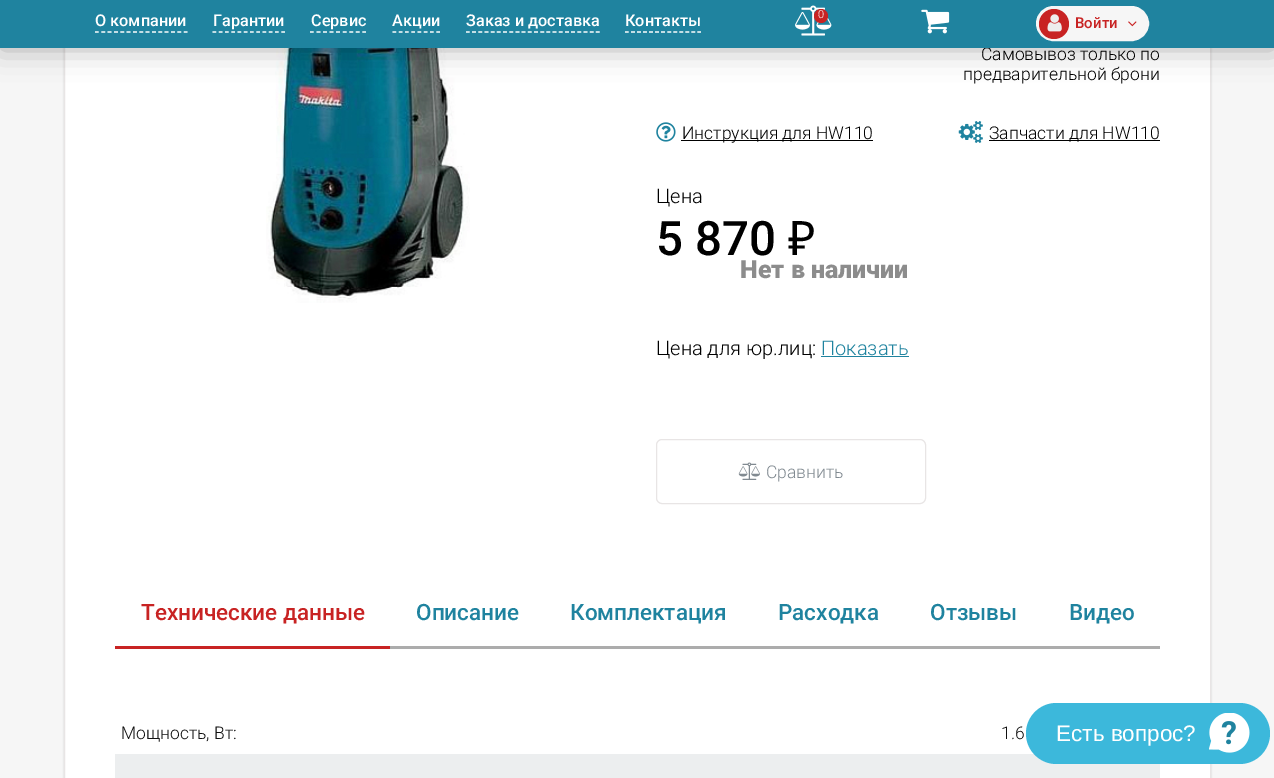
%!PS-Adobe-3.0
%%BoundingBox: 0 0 1274 778
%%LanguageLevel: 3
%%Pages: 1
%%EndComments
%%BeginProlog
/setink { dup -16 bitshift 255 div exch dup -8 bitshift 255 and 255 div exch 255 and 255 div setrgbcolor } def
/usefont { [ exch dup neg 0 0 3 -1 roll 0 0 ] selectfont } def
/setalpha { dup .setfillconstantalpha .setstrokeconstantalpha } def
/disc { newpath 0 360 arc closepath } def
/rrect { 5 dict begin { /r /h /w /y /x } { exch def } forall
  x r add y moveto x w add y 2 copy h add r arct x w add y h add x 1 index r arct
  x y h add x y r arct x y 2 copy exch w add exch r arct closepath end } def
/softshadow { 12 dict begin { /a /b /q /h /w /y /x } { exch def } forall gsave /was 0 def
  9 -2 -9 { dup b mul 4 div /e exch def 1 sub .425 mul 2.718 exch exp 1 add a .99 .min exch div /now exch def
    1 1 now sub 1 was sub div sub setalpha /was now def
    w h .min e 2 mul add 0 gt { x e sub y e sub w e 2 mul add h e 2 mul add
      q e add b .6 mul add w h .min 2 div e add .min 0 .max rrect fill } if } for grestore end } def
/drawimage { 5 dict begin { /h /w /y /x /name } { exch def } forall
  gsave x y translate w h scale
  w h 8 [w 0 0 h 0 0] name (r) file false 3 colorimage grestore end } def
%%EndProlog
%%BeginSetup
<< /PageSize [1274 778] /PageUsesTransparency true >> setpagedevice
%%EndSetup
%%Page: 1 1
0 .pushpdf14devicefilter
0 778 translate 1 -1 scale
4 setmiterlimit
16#F6F6F6 setink
0 0 1274 778 rectfill
16#000000 setink
64 -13 1147 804 10 1 0.16 softshadow
16#FFFFFF setink
65 48 1145 730 rectfill
16#E8E5E5 setink
64.5 -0.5 1146 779 rectstroke
(img5.raw) 266 48 204 255 drawimage
16#000000 setink
0 1 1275 48 0 15 0.3 softshadow
/Roboto-Light 17.5 usefont
981 60 moveto (Самовывоз только по) show
16#1F839F setink
0 0 1274 48 rectfill
16#FFFFFF setink
1.2 setlinewidth
[3.75 2.59] 0 setdash
95 32 moveto 187.5 32 lineto stroke
/Roboto-Medium 16.25 usefont
95 26 moveto (О компании) show
[3.75 2.5] 0 setdash
212.5 32 moveto 285 32 lineto stroke
213 26 moveto (Гарантии) show
[3.75 2.81] 0 setdash
310 32 moveto 366 32 lineto stroke
311 26 moveto (Сервис) show
[3.75 2.5] 0 setdash
392.5 32 moveto 440 32 lineto stroke
392 26 moveto (Акции) show
[3.75 2.44] 0 setdash
466 32 moveto 600 32 lineto stroke
466 26 moveto (Заказ и доставка) show
[3.75 2.29] 0 setdash
625 32 moveto 701 32 lineto stroke
625 26 moveto (Контакты) show
(img1.raw) 795 5 37 31 drawimage
16#C82323 setink
821 16 7 disc fill
/Roboto-Light 11 usefont
16#FFFFFF setink
818 18 moveto (0) show
(img2.raw) 921 9 29 25 drawimage
16#F6F6F6 setink
1037.5 7.5 110 32 16 rrect gsave fill grestore
3 setlinewidth
[] 0 setdash
stroke
16#C82323 setink
1054 24 15 disc fill
(img3.raw) 1047 14 15 18 drawimage
/Roboto-Medium 15 usefont
1075 28 moveto (Войти) show
(img4.raw) 1128 21 9 6 drawimage
/Roboto-Light 17.5 usefont
16#000000 setink
963 80 moveto (предварительной брони) show
(img6.raw) 656 122 20 20 drawimage
681 140 192 1 rectfill
682 139 moveto (Инструкция для HW110) show
(img7.raw) 958 121 25 22 drawimage
989 140 171 1 rectfill
989 139 moveto (Запчасти для HW110) show
/Roboto-Light 20 usefont
656 203 moveto (Цена) show
/Roboto-Medium 47.5 usefont
656 255 moveto (5 870) show
/NotoSans-Regular 47.5 usefont
788 255 moveto (₽) show
/Roboto-Black 25 usefont
16#8C8C8C setink
740 278 moveto (Нет в наличии) show
/Roboto-Light 20 usefont
16#000000 setink
656 355 moveto (Цена для юр.лиц:) show
16#1F839F setink
821 355 moveto (Показать) show
821 356 88 1 rectfill
16#E8E5E5 setink
1 setlinewidth
656.5 439.5 269 64 5.5 rrect stroke
(img8.raw) 738 462 22 18 drawimage
/Roboto-Light 17.5 usefont
16#818A91 setink
766 478 moveto (Сравнить) show
16#C82323 setink
115 646 275 3 rectfill
/Roboto-Medium 22.5 usefont
141 620 moveto (Технические данные) show
16#ACACAC setink
390 646 770 3 rectfill
16#1F839F setink
[
    [(Описание) 416 620]
    [(Комплектация) 570 620]
    [(Расходка) 778 620]
    [(Отзывы) 930 620]
    [(Видео) 1069 620]
] { aload pop moveto show } forall
/Roboto-Light 17.5 usefont
16#111111 setink
121 739 moveto (Мощность, Вт:) show
16#ECEEEF setink
115 754 920 1 rectfill
16#111111 setink
1001 739 moveto (1.6) show
16#ECEEEF setink
115 755 1045 23 rectfill
16#3CB8DB setink
1026 703 244 61 30.5 rrect fill
/LiberationSans-Regular 22.5 usefont
16#FFFFFF setink
1056 741 moveto (Есть вопрос?) show
(img9.raw) 1209 713 41 40 drawimage
.poppdf14devicefilter showpage
%%EOF
